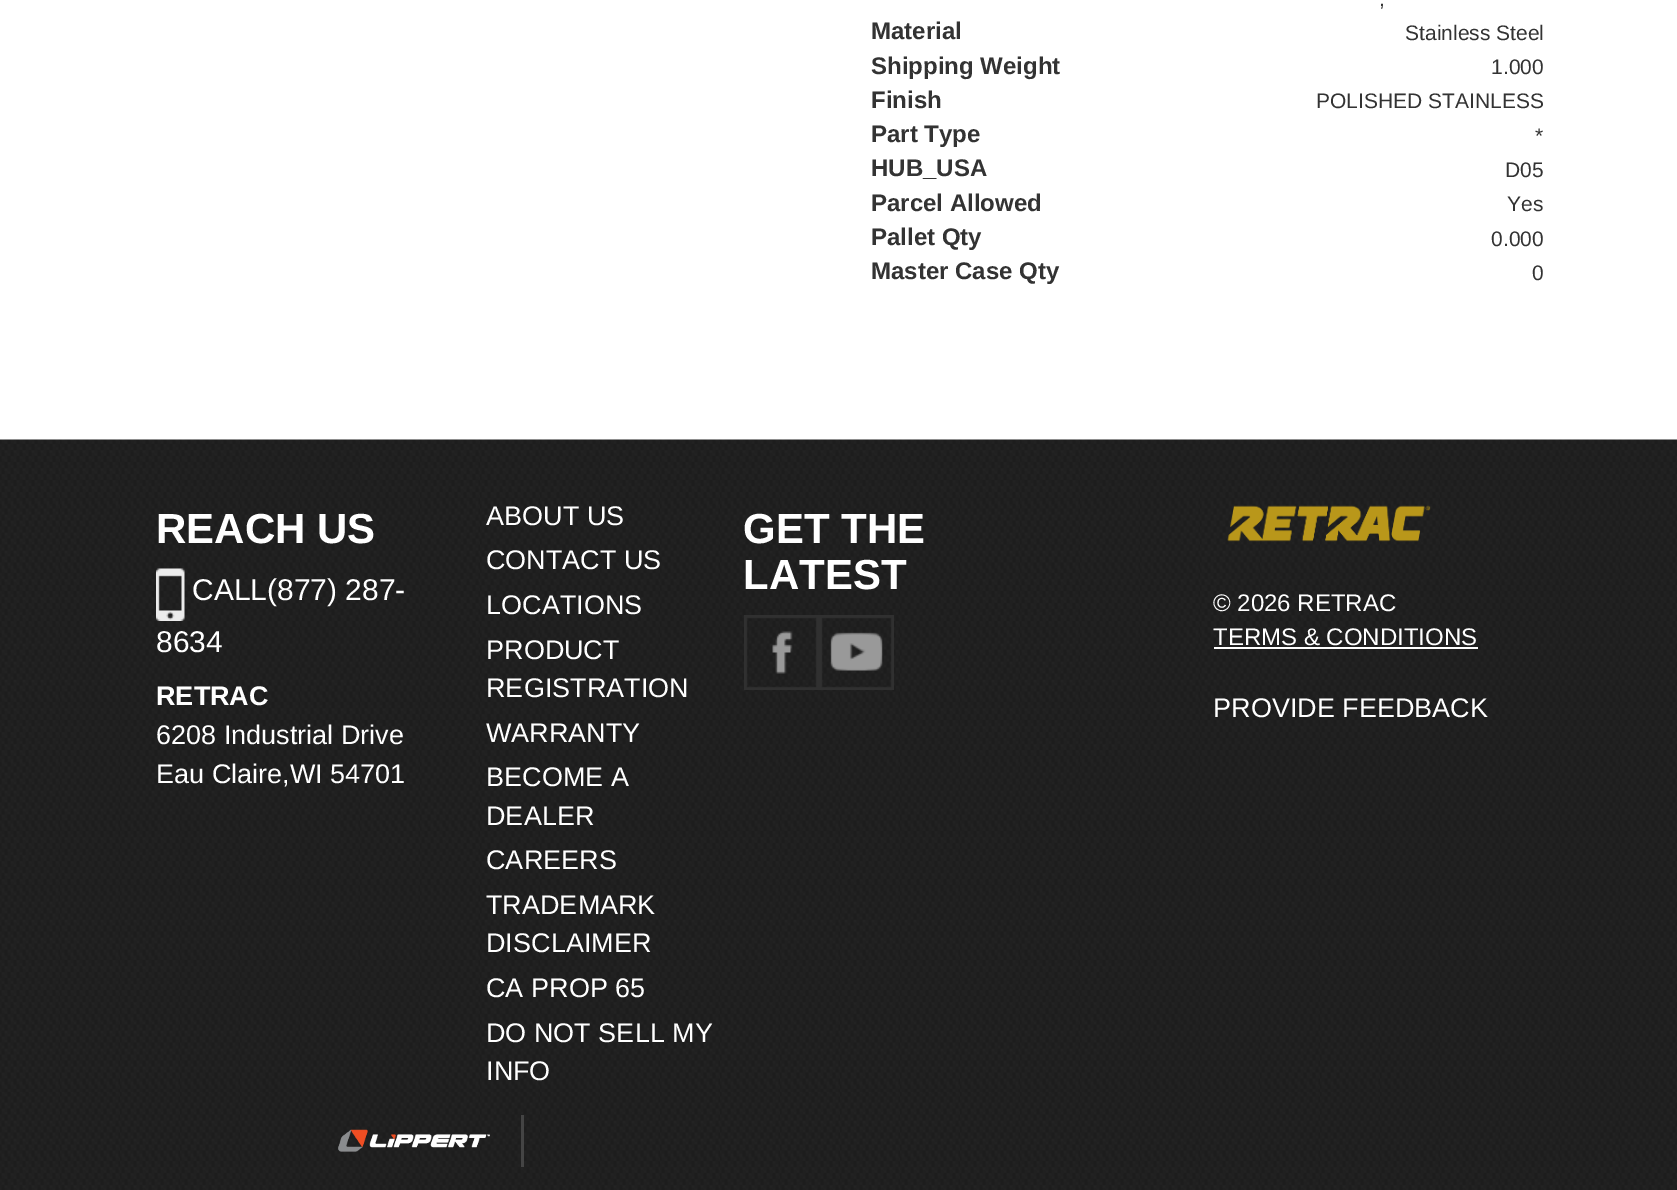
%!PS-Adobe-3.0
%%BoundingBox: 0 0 1677 1190
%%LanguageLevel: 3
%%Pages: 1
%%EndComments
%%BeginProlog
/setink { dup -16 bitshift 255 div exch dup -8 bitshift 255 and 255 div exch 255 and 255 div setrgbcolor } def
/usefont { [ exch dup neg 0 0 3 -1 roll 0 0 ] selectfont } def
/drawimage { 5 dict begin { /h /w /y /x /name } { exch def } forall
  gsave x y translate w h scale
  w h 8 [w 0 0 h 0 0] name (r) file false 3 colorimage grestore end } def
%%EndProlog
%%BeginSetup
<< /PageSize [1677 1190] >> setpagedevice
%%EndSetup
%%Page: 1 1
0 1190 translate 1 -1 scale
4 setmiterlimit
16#FFFFFF setink
0 0 1677 1190 rectfill
/LiberationSans-Regular 21 usefont
16#333333 setink
1379 6 moveto (,) show
/LiberationSans-Bold 24 usefont
871 39 moveto (Material) show
/LiberationSans-Regular 21 usefont
1405 40 moveto (Stainless Steel) show
/LiberationSans-Bold 24 usefont
871 74 moveto (Shipping Weight) show
/LiberationSans-Regular 21 usefont
1491 74 moveto (1.000) show
/LiberationSans-Bold 24 usefont
871 108 moveto (Finish) show
/LiberationSans-Regular 21 usefont
1316 108 moveto (POLISHED STAINLESS) show
/LiberationSans-Bold 24 usefont
871 142 moveto (Part Type) show
/LiberationSans-Regular 21 usefont
1535 143 moveto (*) show
/LiberationSans-Bold 24 usefont
871 176 moveto (HUB_USA) show
/LiberationSans-Regular 21 usefont
1505 177 moveto (D05) show
/LiberationSans-Bold 24 usefont
871 211 moveto (Parcel Allowed) show
/LiberationSans-Regular 21 usefont
1507 211 moveto (Yes) show
/LiberationSans-Bold 24 usefont
871 245 moveto (Pallet Qty) show
/LiberationSans-Regular 21 usefont
1491 246 moveto (0.000) show
/LiberationSans-Bold 24 usefont
871 279 moveto (Master Case Qty) show
/LiberationSans-Regular 21 usefont
1532 280 moveto (0) show
(img1.raw) 0 439 1677 653 drawimage
/LiberationSans-Bold 42 usefont
16#FFFFFF setink
156 543 moveto (REACH US) show
(img2.raw) 156 568 29 53 drawimage
/LiberationSans-Regular 30 usefont
192 600 moveto (CALL\(877\) 287-) show
156 652 moveto (8634) show
/LiberationSans-Bold 27 usefont
156 705 moveto (RETRAC) show
/LiberationSans-Regular 27 usefont
[
    [(6208 Industrial Drive) 156 744]
    [(Eau Claire,WI 54701) 156 783]
    [(ABOUT US) 486 525]
    [(CONTACT US) 486 569]
    [(LOCATIONS) 486 614]
    [(PRODUCT) 486 659]
    [(REGISTRATION) 486 697]
    [(WARRANTY) 486 742]
    [(BECOME A) 486 786]
    [(DEALER) 486 825]
    [(CAREERS) 486 869]
    [(TRADEMARK) 486 914]
    [(DISCLAIMER) 486 952]
    [(CA PROP 65) 486 997]
    [(DO NOT SELL MY) 486 1042]
    [(INFO) 486 1080]
] { aload pop moveto show } forall
/LiberationSans-Bold 42 usefont
743 543 moveto (GET THE) show
743 589 moveto (LATEST) show
(img3.raw) 744 615 75 75 drawimage
(img4.raw) 819 615 75 75 drawimage
(img5.raw) 1227 505 204 37 drawimage
/LiberationSans-Regular 24 usefont
1213 611 moveto (© 2026 RETRAC) show
1213 645 moveto (TERMS & CONDITIONS) show
1214 647 264 2 rectfill
/LiberationSans-Regular 27 usefont
1213 717 moveto (PROVIDE FEEDBACK) show
(img6.raw) 0 1092 1677 98 drawimage
16#444444 setink
521 1115 3 52 rectfill
(img7.raw) 338 1129 152 23 drawimage
(img8.raw) 338 1129 152 23 drawimage
showpage
%%EOF
